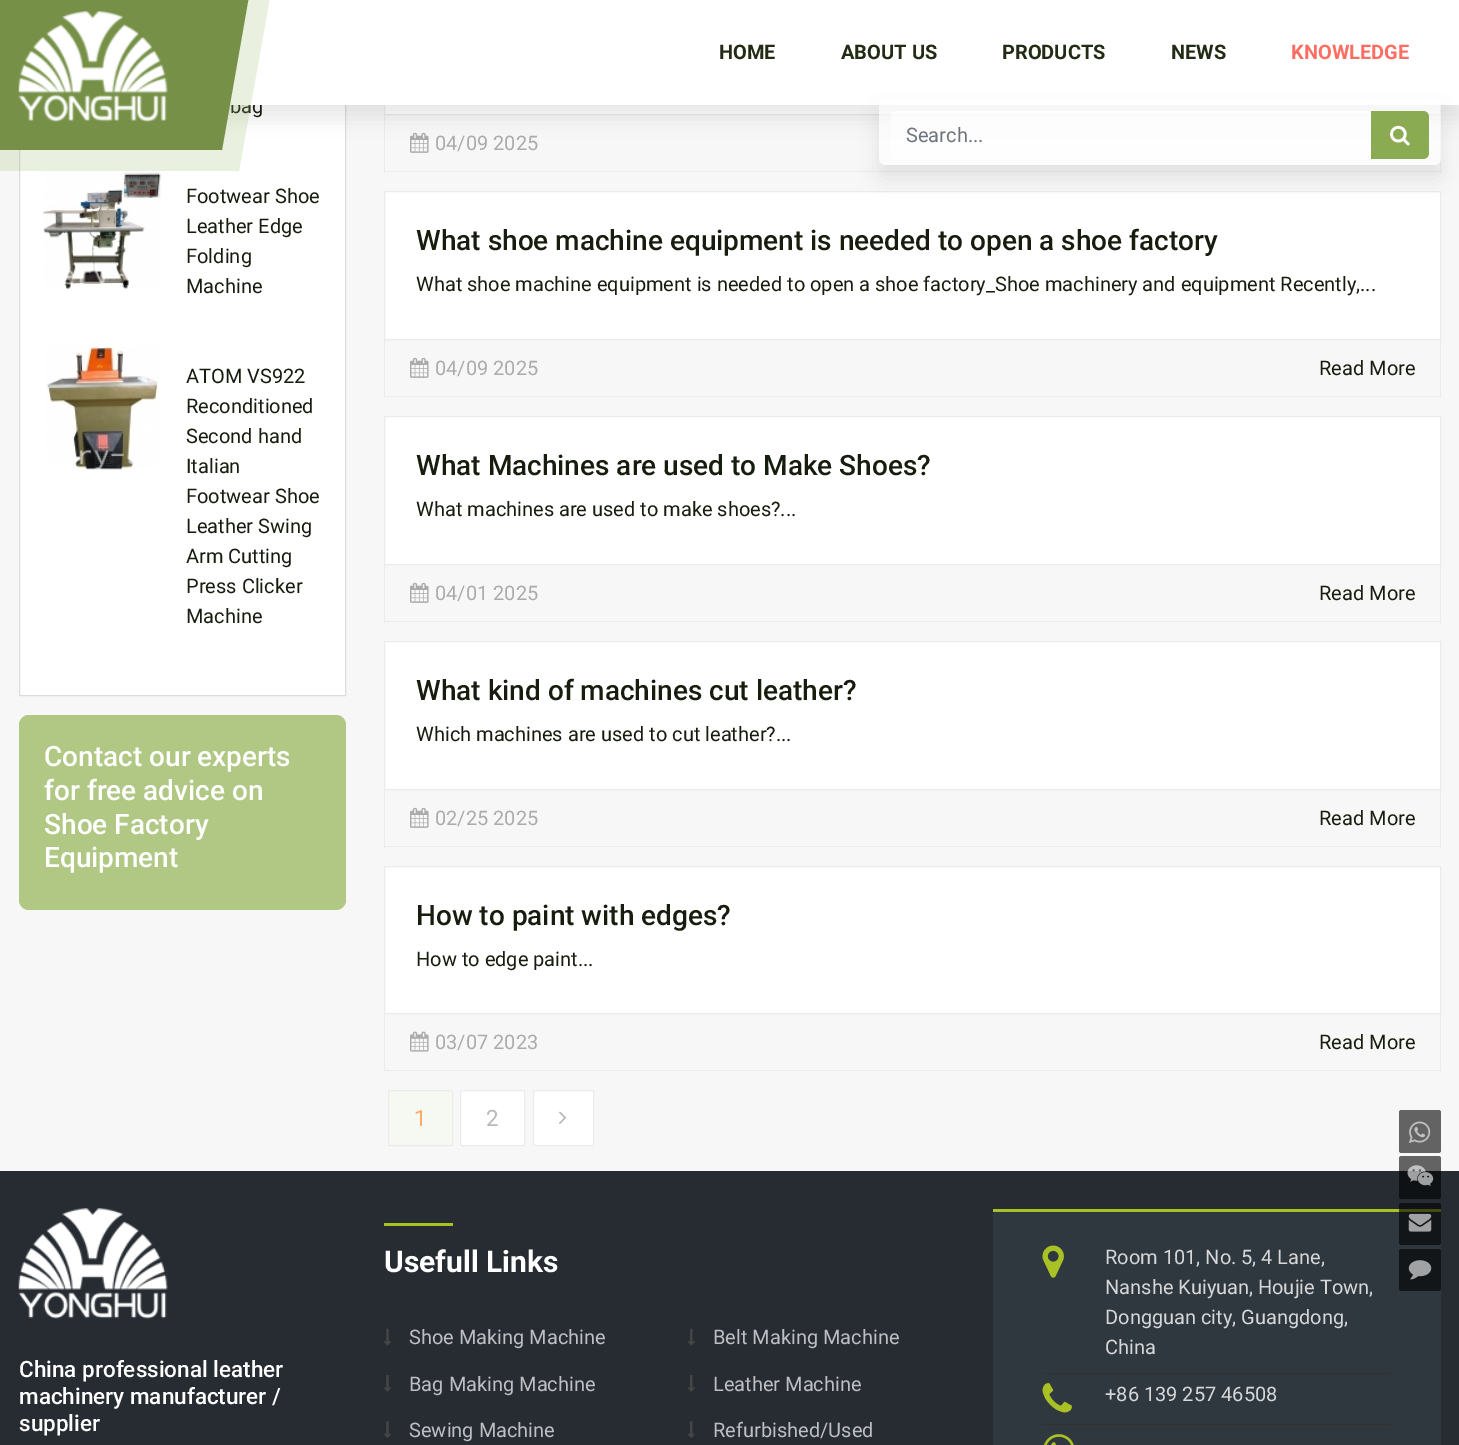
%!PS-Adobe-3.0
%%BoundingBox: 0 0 1459 1445
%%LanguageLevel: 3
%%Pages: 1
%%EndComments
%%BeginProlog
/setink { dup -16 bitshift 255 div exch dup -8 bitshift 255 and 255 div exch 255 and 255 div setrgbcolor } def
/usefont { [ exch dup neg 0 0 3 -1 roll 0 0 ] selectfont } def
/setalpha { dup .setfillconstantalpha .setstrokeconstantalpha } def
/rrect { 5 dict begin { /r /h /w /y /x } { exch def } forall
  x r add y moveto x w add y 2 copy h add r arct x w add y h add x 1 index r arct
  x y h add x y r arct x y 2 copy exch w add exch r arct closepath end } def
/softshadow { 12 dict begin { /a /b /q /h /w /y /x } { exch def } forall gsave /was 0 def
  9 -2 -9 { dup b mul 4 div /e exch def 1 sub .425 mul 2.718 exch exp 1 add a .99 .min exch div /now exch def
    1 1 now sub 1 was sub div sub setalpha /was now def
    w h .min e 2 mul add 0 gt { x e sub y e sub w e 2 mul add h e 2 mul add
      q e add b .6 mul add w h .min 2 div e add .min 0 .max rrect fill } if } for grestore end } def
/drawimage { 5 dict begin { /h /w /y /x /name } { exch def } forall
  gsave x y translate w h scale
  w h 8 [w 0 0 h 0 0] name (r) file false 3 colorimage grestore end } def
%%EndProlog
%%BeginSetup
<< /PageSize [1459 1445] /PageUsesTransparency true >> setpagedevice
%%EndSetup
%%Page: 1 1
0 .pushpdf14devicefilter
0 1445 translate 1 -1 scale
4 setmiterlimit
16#F7F7F7 setink
0 0 1459 1445 rectfill
16#FFFFFF setink
20 105 325 590 rectfill
16#DCDCDC setink
19.5 -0.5 326 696 rectstroke
16#FFFFFF setink
385 105 1055 9 rectfill
16#EBEBEB setink
384.5 -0.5 1056 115 rectstroke
[
    [1440 115 1 58 16#EBEBEB]
    [384 171 1057 1 16#EBEBEB]
    [384 115 1 58 16#EBEBEB]
] { aload pop setink rectfill } forall
(img5.raw) 410 132 19 21 drawimage
16#191919 setink
0 13 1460 105 0 9.5 0.1 softshadow
/Roboto-Regular 20 usefont
16#171D0E setink
230 113 moveto (bag) show
16#FFFFFF setink
229 0 1230 105 rectfill
0.2 setalpha
16#95B65E setink
-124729 -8 moveto 271 -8 lineto 239 171 lineto -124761 171 lineto closepath fill
1 setalpha
16#769147 setink
-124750 -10 moveto 250 -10 lineto 222 150 lineto -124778 150 lineto closepath fill
(img1.raw) 18 11 150 111 drawimage
/Roboto-Bold 20 usefont
16#222B14 setink
[
    [(HOME) 719 59]
    [(ABOUT US) 841 59]
    [(PRODUCTS) 1002 59]
    [(NEWS) 1171 59]
] { aload pop moveto show } forall
16#FB6F63 setink
1291 59 moveto (KNOWLEDGE) show
16#FFFFFF setink
384.5 191.5 moveto 1440.5 191.5 lineto 1440.5 339.5 lineto 384.5 339.5 lineto closepath gsave fill grestore
16#EBEBEB setink
stroke
gsave
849 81 moveto 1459 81 lineto 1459 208 lineto 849 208 lineto closepath 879 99 moveto 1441 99 lineto 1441 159 lineto 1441 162.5 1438.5 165 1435 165 curveto 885 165 lineto 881.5 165 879 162.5 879 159 curveto closepath eoclip newpath
16#191919 setink
879 111 562 67 6 9.5 0.1 softshadow
grestore
0.6 setalpha
16#FFFFFF setink
879 99 moveto 1441 99 lineto 1441 159 lineto 1441 162.5 1438.5 165 1435 165 curveto 885 165 lineto 881.5 165 879 162.5 879 159 curveto closepath fill
896 111 moveto 1371 111 lineto 1371 159 lineto 896 159 lineto 893 159 891 157 891 154 curveto 891 116 lineto 891 113 893 111 896 111 curveto closepath fill
/Roboto-Regular 20 usefont
1 setalpha
16#6C757D setink
906 142 moveto (Search...) show
16#8BAB53 setink
1371 111 moveto 1423 111 lineto 1426.5 111 1429 113.5 1429 117 curveto 1429 153 lineto 1429 156.5 1426.5 159 1423 159 curveto 1371 159 lineto closepath fill
(img2.raw) 1390 125 20 21 drawimage
(img3.raw) 43 171 118 118 drawimage
16#171D0E setink
[
    [(Footwear Shoe) 186 203]
    [(Leather Edge) 186 233]
    [(Folding) 186 263]
    [(Machine) 186 293]
] { aload pop moveto show } forall
(img4.raw) 46 346 113 124 drawimage
[
    [(ATOM VS922) 186 383]
    [(Reconditioned) 186 413]
    [(Second hand) 186 443]
    [(Italian) 186 473]
    [(Footwear Shoe) 186 503]
    [(Leather Swing) 186 533]
    [(Arm Cutting) 186 563]
    [(Press Clicker) 186 593]
    [(Machine) 186 623]
] { aload pop moveto show } forall
16#B0C884 setink
19 715 327 195 10 rrect fill
/Roboto-Medium 28 usefont
16#FFFFFF setink
[
    [(Contact our experts) 44 766]
    [(for free advice on) 44 800]
    [(Shoe Factory) 44 834]
    [(Equipment) 44 867]
] { aload pop moveto show } forall
/Roboto-Regular 20 usefont
16#ABABAB setink
435 150 moveto (04/09 2025) show
/Roboto-Medium 28 usefont
16#171D0E setink
416 250 moveto (What shoe machine equipment is needed to open a shoe factory) show
/Roboto-Regular 20 usefont
416 291 moveto (What shoe machine equipment is needed to open a shoe factory_Shoe machinery and equipment Recently,...) show
[
    [1440 340 1 58 16#EBEBEB]
    [384 396 1057 1 16#EBEBEB]
    [384 340 1 58 16#EBEBEB]
] { aload pop setink rectfill } forall
(img5.raw) 410 357 19 21 drawimage
16#ABABAB setink
435 375 moveto (04/09 2025) show
16#171D0E setink
1319 375 moveto (Read More) show
16#FFFFFF setink
384.5 416.5 moveto 1440.5 416.5 lineto 1440.5 564.5 lineto 384.5 564.5 lineto closepath gsave fill grestore
16#EBEBEB setink
stroke
/Roboto-Medium 28 usefont
16#171D0E setink
416 475 moveto (What Machines are used to Make Shoes?) show
/Roboto-Regular 20 usefont
416 516 moveto (What machines are used to make shoes?...) show
[
    [1440 565 1 58 16#EBEBEB]
    [384 621 1057 1 16#EBEBEB]
    [384 565 1 58 16#EBEBEB]
] { aload pop setink rectfill } forall
(img5.raw) 410 582 19 21 drawimage
16#ABABAB setink
435 600 moveto (04/01 2025) show
16#171D0E setink
1319 600 moveto (Read More) show
16#FFFFFF setink
384.5 641.5 moveto 1440.5 641.5 lineto 1440.5 789.5 lineto 384.5 789.5 lineto closepath gsave fill grestore
16#EBEBEB setink
stroke
/Roboto-Medium 28 usefont
16#171D0E setink
416 700 moveto (What kind of machines cut leather?) show
/Roboto-Regular 20 usefont
416 741 moveto (Which machines are used to cut leather?...) show
[
    [1440 790 1 58 16#EBEBEB]
    [384 846 1057 1 16#EBEBEB]
    [384 790 1 58 16#EBEBEB]
] { aload pop setink rectfill } forall
(img5.raw) 410 807 19 21 drawimage
16#ABABAB setink
435 825 moveto (02/25 2025) show
16#171D0E setink
1319 825 moveto (Read More) show
16#FFFFFF setink
384.5 866.5 moveto 1440.5 866.5 lineto 1440.5 1013.5 lineto 384.5 1013.5 lineto closepath gsave fill grestore
16#EBEBEB setink
stroke
/Roboto-Medium 28 usefont
16#171D0E setink
416 925 moveto (How to paint with edges?) show
/Roboto-Regular 20 usefont
416 966 moveto (How to edge paint...) show
[
    [1440 1014 1 57 16#EBEBEB]
    [384 1070 1057 1 16#EBEBEB]
    [384 1014 1 57 16#EBEBEB]
] { aload pop setink rectfill } forall
(img6.raw) 410 1031 19 21 drawimage
16#ABABAB setink
435 1049 moveto (03/07 2023) show
16#171D0E setink
1319 1049 moveto (Read More) show
16#F6F9F1 setink
388.5 1090.5 moveto 450.5 1090.5 lineto 451.5 1090.5 452.5 1091.5 452.5 1092.5 curveto 452.5 1143.5 lineto 452.5 1144.5 451.5 1145.5 450.5 1145.5 curveto 388.5 1145.5 lineto closepath gsave fill grestore
16#EBEBEB setink
stroke
/Roboto-Regular 22.5 usefont
16#FFA86B setink
414 1126 moveto (1) show
16#FFFFFF setink
460.5 1090.5 64 55 2 rrect gsave fill grestore
16#EBEBEB setink
stroke
16#B8B8B8 setink
486 1126 moveto (2) show
16#FFFFFF setink
535.5 1090.5 moveto 593.5 1090.5 lineto 593.5 1145.5 lineto 535.5 1145.5 lineto 534.5 1145.5 533.5 1144.5 533.5 1143.5 curveto 533.5 1092.5 lineto 533.5 1091.5 534.5 1090.5 535.5 1090.5 curveto closepath gsave fill grestore
16#EBEBEB setink
stroke
(img7.raw) 559 1111 8 13 drawimage
16#636363 setink
1399 1110 42 43 2.5 rrect fill
(img8.raw) 1408 1121 23 22 drawimage
16#262C31 setink
0 1171 1459 274 rectfill
0.6 setalpha
16#000000 setink
1399 1156 42 43 2.5 rrect fill
1 setalpha
(img9.raw) 1407 1165 27 21 drawimage
16#30383F setink
993 1212 448 233 rectfill
16#A9C124 setink
993 1209 448 3 rectfill
0.6 setalpha
16#000000 setink
1399 1203 42 42 2.5 rrect fill
1 setalpha
(img10.raw) 1408 1213 24 19 drawimage
16#131619 setink
1399 1249 42 42 2.5 rrect fill
(img11.raw) 1408 1260 24 20 drawimage
(img12.raw) 18 1208 150 111 drawimage
/Roboto-Medium 22.5 usefont
16#FFFFFF setink
[
    [(China professional leather) 19 1377]
    [(machinery manufacturer /) 19 1404]
    [(supplier) 19 1431]
] { aload pop moveto show } forall
16#A9C124 setink
384 1223 69 3 rectfill
/Roboto-Bold 30 usefont
16#FFFFFF setink
384 1272 moveto (Usefull Links) show
(img13.raw) 384 1328 7 18 drawimage
/Roboto-Regular 20 usefont
16#BEBFC4 setink
409 1344 moveto (Shoe Making Machine) show
(img14.raw) 687 1328 8 18 drawimage
713 1344 moveto (Belt Making Machine) show
(img15.raw) 384 1375 7 17 drawimage
409 1391 moveto (Bag Making Machine) show
(img16.raw) 687 1375 8 17 drawimage
713 1391 moveto (Leather Machine) show
(img17.raw) 384 1421 7 17 drawimage
409 1437 moveto (Sewing Machine) show
(img18.raw) 687 1421 8 17 drawimage
713 1437 moveto (Refurbished/Used) show
(img19.raw) 1042 1245 22 33 drawimage
16#D5D7D8 setink
[
    [(Room 101, No. 5, 4 Lane,) 1105 1264]
    [(Nanshe Kuiyuan, Houjie Town,) 1105 1294]
    [(Dongguan city, Guangdong,) 1105 1324]
    [(China) 1105 1354]
] { aload pop moveto show } forall
16#313131 setink
1043 1373 348 1 rectfill
(img20.raw) 1042 1383 30 30 drawimage
16#D5D7D8 setink
1105 1401 moveto (+86 139 257 46508) show
16#313131 setink
1043 1424 348 1 rectfill
(img21.raw) 1044 1434 30 11 drawimage
.poppdf14devicefilter showpage
%%EOF
